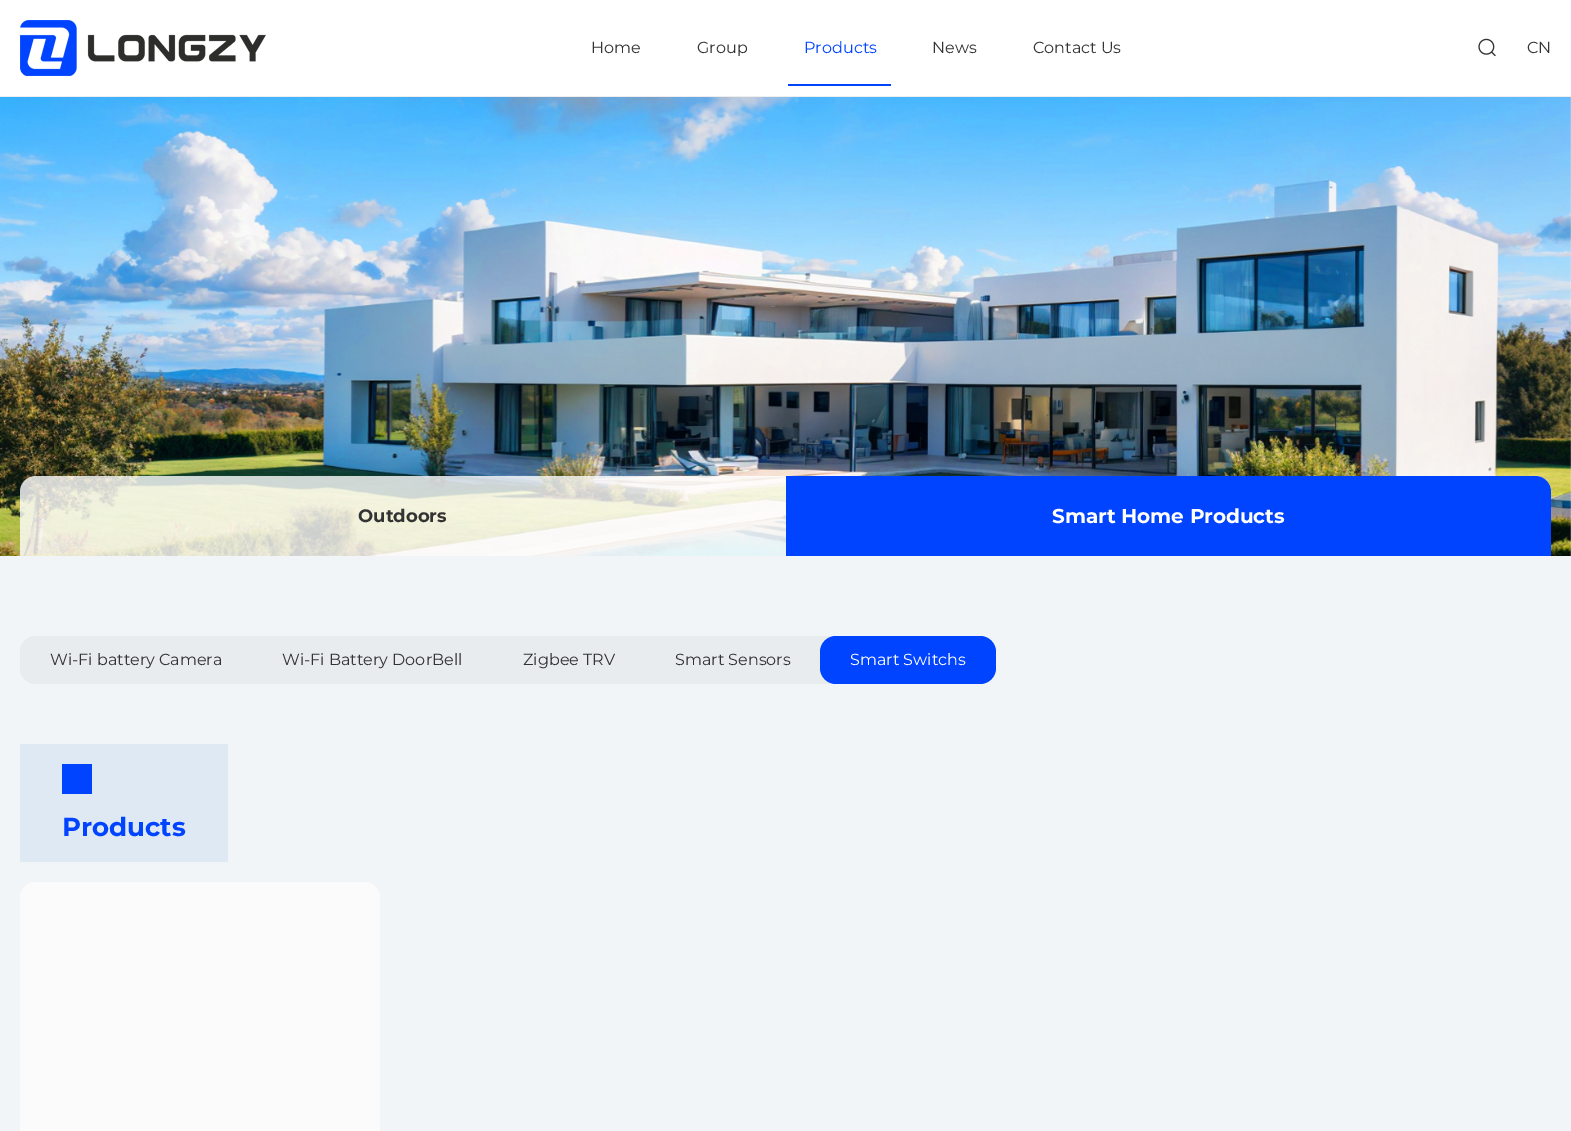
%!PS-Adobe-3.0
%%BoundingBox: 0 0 1571 1131
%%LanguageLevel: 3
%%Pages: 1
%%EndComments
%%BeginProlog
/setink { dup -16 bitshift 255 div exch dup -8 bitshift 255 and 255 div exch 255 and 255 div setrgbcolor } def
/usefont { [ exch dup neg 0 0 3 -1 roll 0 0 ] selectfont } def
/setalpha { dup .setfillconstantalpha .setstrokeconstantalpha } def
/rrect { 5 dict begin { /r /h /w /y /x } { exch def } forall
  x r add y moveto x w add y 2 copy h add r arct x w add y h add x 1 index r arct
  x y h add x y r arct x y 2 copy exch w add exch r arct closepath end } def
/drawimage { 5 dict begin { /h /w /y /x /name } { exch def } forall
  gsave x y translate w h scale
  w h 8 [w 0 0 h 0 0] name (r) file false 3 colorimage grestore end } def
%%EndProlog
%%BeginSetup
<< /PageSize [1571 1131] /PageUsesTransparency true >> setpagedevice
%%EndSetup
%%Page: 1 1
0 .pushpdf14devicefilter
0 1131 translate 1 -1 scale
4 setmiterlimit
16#F2F5F8 setink
0 0 1571 1131 rectfill
16#FFFFFF setink
0 0 1571 96 rectfill
16#EEEEEE setink
0 96 1571 1 rectfill
(img1.raw) 20 20 246 56 drawimage
/Montserrat-Regular 16 usefont
16#333333 setink
591 53 moveto (Home) show
697 53 moveto (Group) show
16#0044FF setink
804 53 moveto (Products) show
788 84 103 2 rectfill
16#333333 setink
932 53 moveto (News) show
1033 53 moveto (Contact Us) show
(img2.raw) 1478 38 18 19 drawimage
1527 53 moveto (CN) show
(img3.raw) 0 97 1571 459 drawimage
0.8 setalpha
16#FFFFFF setink
36 476 moveto 1535 476 lineto 1544 476 1551 483 1551 492 curveto 1551 556 lineto 20 556 lineto 20 492 lineto 20 483 27 476 36 476 curveto closepath fill
/Montserrat-Bold 18 usefont
1 setalpha
16#333333 setink
358 522 moveto (Outdoors) show
16#0044FF setink
786 476 moveto 1535 476 lineto 1544 476 1551 483 1551 492 curveto 1551 556 lineto 786 556 lineto closepath fill
/Montserrat-Bold 20 usefont
16#FFFFFF setink
1052 523 moveto (Smart Home Products) show
16#E8ECEF setink
36 636 moveto 252 636 lineto 252 684 lineto 36 684 lineto 27 684 20 677 20 668 curveto 20 652 lineto 20 643 27 636 36 636 curveto closepath fill
/Montserrat-Regular 16 usefont
16#333333 setink
50 665 moveto (Wi-Fi battery Camera) show
16#E8ECEF setink
252 636 568 48 rectfill
16#333333 setink
[
    [(Wi-Fi Battery DoorBell) 282 665]
    [(Zigbee TRV) 523 665]
    [(Smart Sensors) 675 665]
] { aload pop moveto show } forall
16#E8ECEF setink
820 636 moveto 980 636 lineto 989 636 996 643 996 652 curveto 996 668 lineto 996 677 989 684 980 684 curveto 820 684 lineto closepath fill
16#0044FF setink
820 636 176 48 16 rrect fill
16#FFFFFF setink
850 665 moveto (Smart Switchs) show
16#DFE9F3 setink
20 744 208 118 rectfill
16#0044FF setink
62 764 30 30 rectfill
/Montserrat-Bold 26 usefont
62 836 moveto (Products) show
16#FBFBFB setink
36 882 moveto 364 882 lineto 373 882 380 889 380 898 curveto 380 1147 lineto 20 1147 lineto 20 898 lineto 20 889 27 882 36 882 curveto closepath fill
.poppdf14devicefilter showpage
%%EOF
